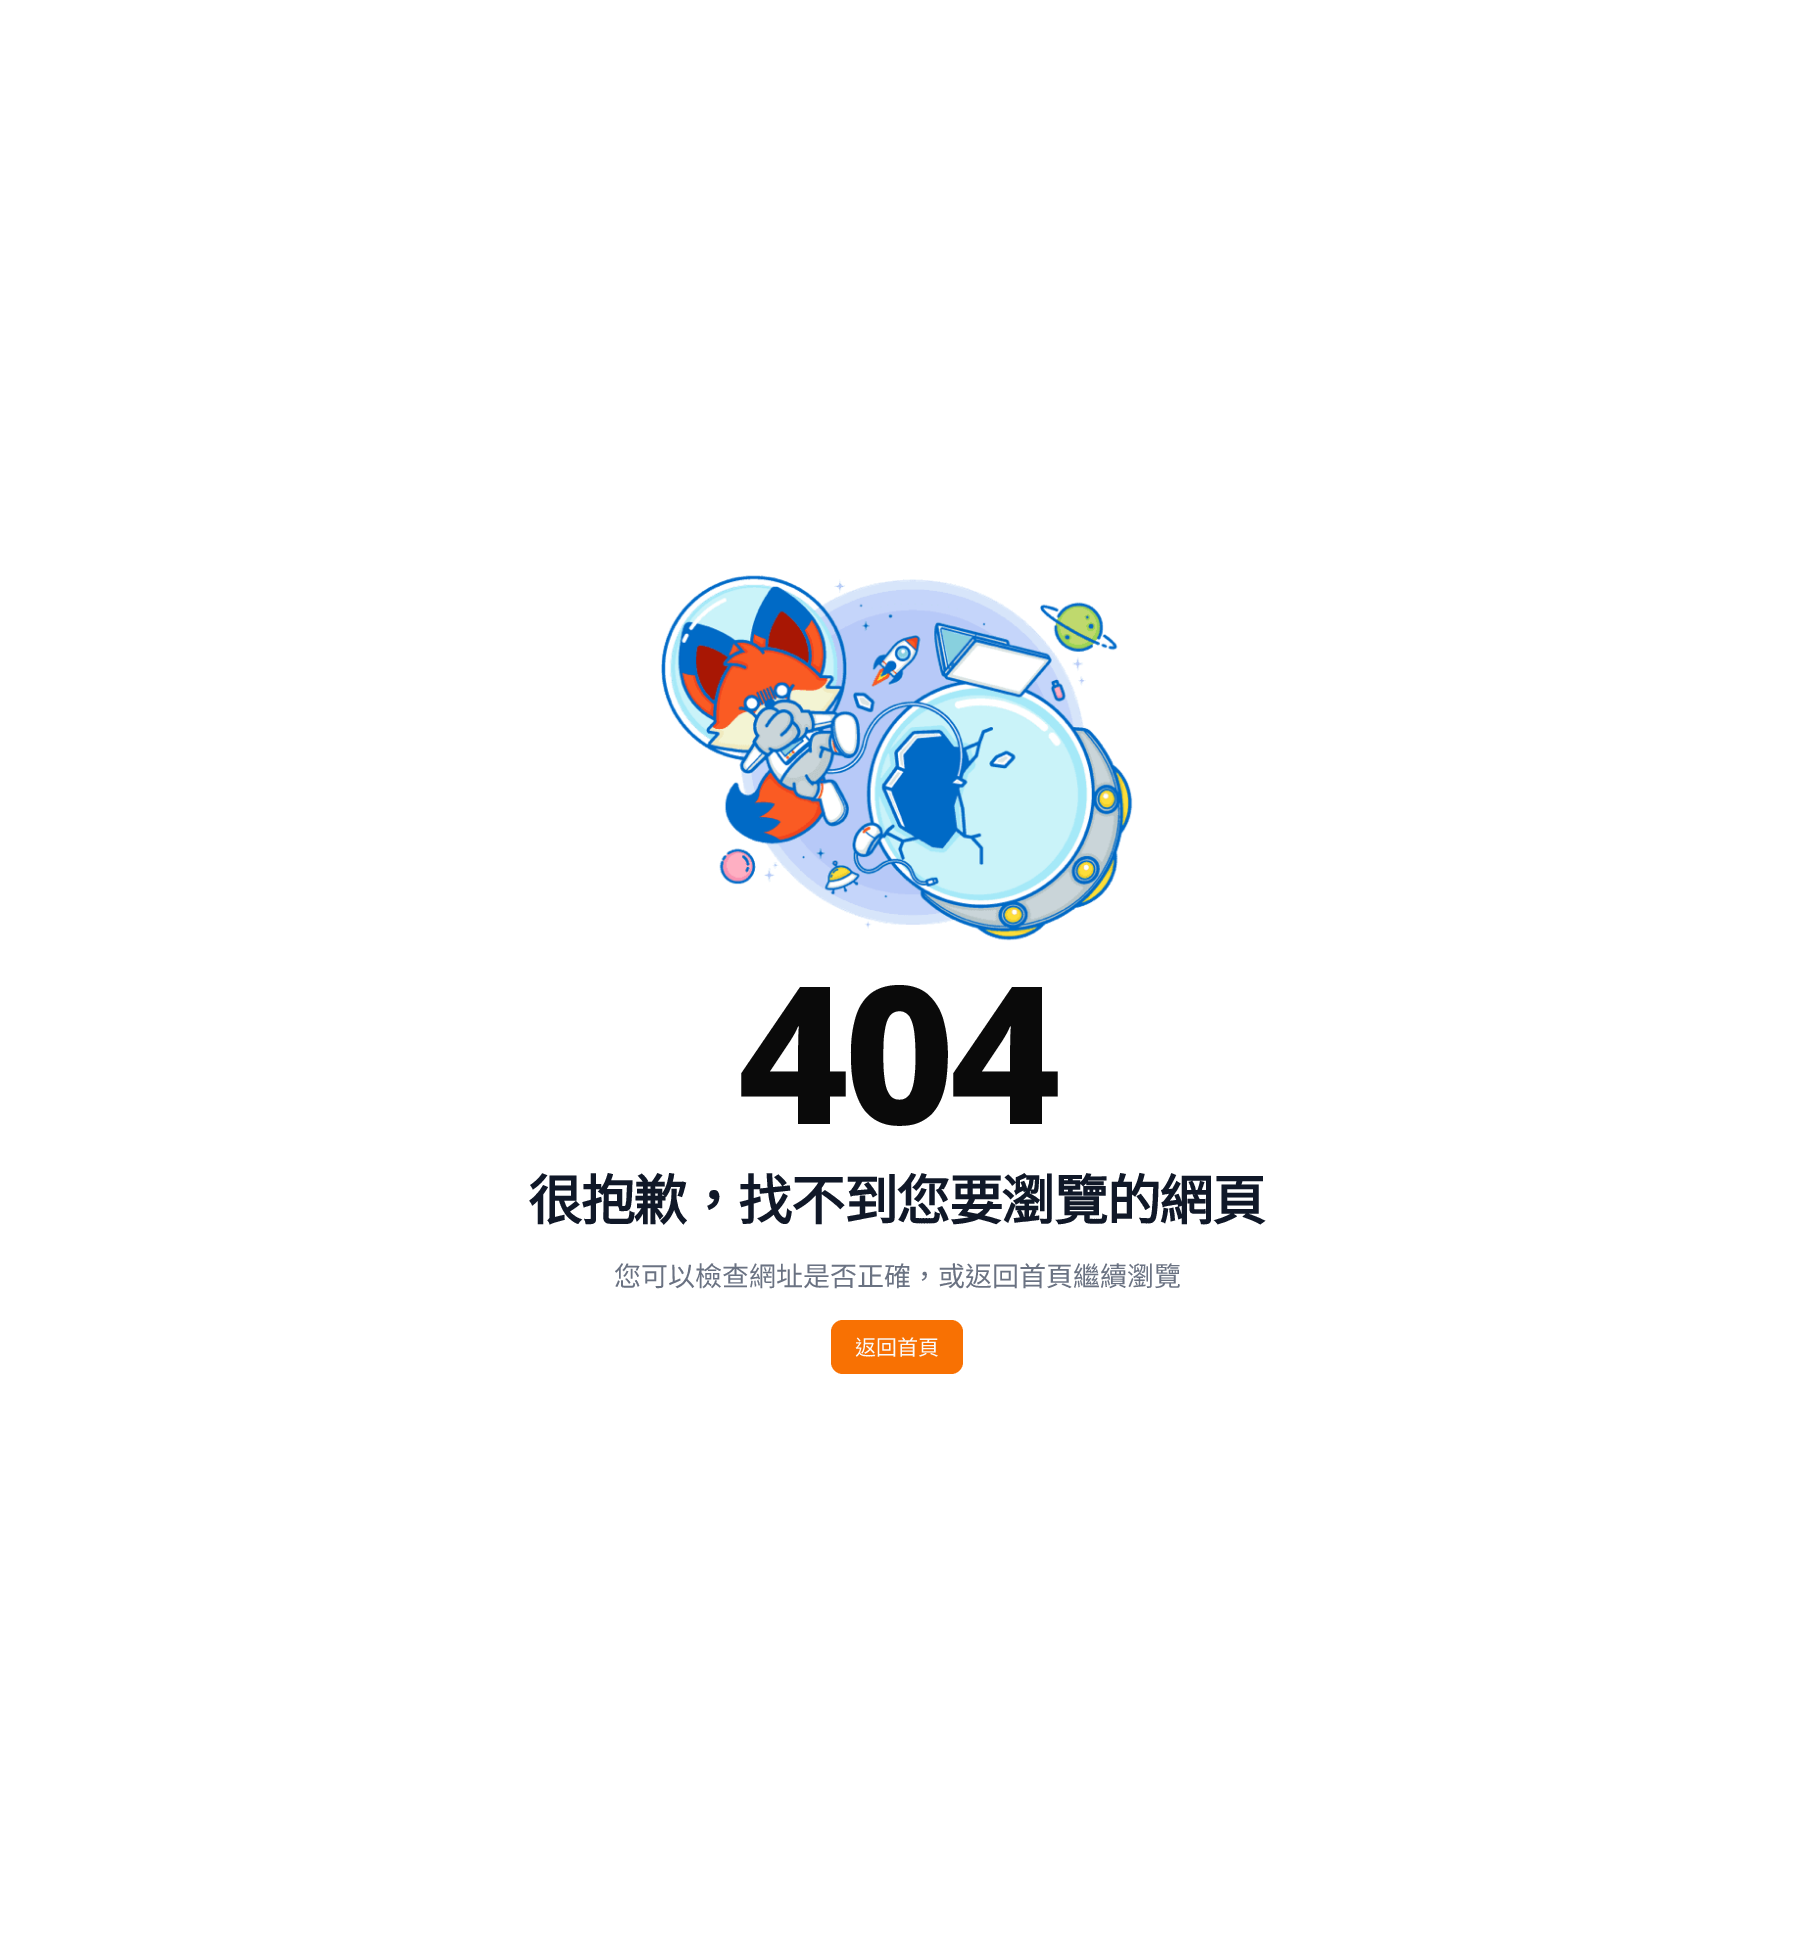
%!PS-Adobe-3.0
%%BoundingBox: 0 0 1794 1936
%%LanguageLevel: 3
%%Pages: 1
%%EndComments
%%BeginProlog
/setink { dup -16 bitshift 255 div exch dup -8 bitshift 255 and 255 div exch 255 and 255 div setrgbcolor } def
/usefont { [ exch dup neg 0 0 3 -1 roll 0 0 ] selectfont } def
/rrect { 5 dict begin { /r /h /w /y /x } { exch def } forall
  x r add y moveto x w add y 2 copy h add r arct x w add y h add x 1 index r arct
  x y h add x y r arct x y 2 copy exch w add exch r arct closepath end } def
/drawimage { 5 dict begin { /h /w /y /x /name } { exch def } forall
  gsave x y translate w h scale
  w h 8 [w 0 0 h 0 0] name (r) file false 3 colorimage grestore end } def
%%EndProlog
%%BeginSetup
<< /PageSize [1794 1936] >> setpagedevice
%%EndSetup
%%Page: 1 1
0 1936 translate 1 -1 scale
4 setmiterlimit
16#FFFFFF setink
0 0 1794 1936 rectfill
(img1.raw) 661 575 472 366 drawimage
/NotoSans-ExtraBold 192 usefont
16#0A0A0A setink
738 1124 moveto -5 0 (404) ashow
/NotoSansCJKTC-Bold 54 usefont
16#101828 setink
528 1220 moveto -1.4 0 (很抱歉，找不到您要瀏覽的網頁) ashow
/NotoSansCJKTC-Regular 27 usefont
16#6A7282 setink
614 1286 moveto (您可以檢查網址是否正確，或返回首頁繼續瀏覽) show
16#F87103 setink
831 1320 132 54 12 rrect fill
/NotoSansCJKTC-Regular 21 usefont
16#FAFAFA setink
855 1355 moveto (返回首頁) show
showpage
%%EOF
